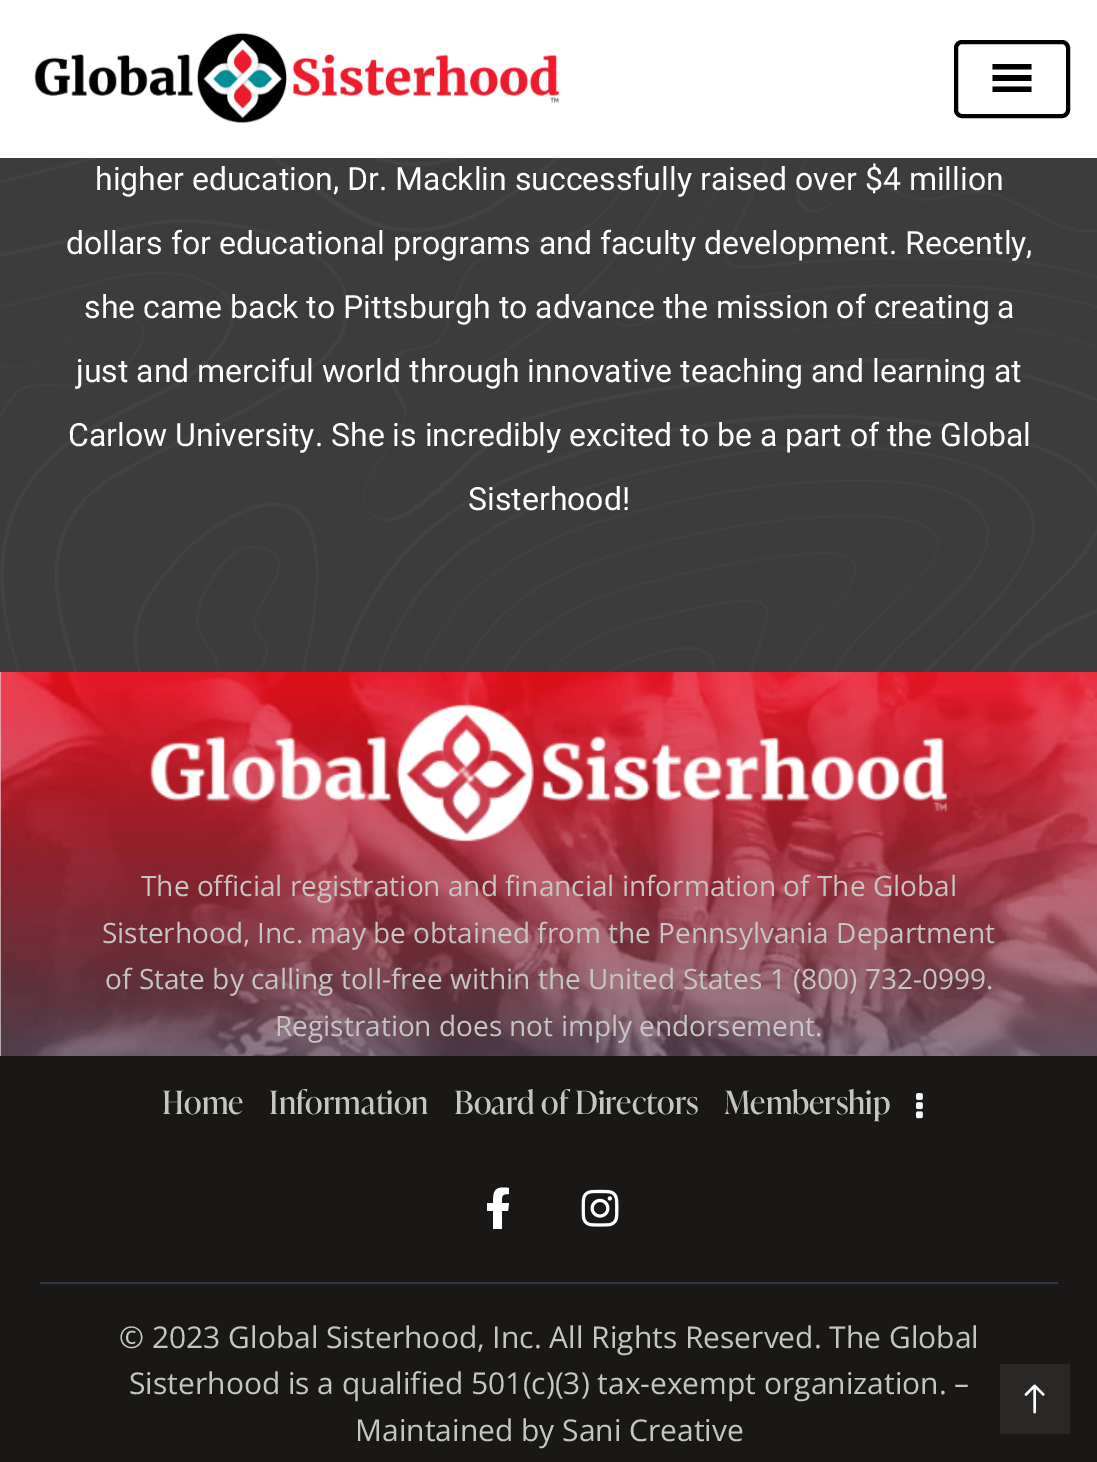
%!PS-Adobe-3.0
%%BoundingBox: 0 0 1097 1462
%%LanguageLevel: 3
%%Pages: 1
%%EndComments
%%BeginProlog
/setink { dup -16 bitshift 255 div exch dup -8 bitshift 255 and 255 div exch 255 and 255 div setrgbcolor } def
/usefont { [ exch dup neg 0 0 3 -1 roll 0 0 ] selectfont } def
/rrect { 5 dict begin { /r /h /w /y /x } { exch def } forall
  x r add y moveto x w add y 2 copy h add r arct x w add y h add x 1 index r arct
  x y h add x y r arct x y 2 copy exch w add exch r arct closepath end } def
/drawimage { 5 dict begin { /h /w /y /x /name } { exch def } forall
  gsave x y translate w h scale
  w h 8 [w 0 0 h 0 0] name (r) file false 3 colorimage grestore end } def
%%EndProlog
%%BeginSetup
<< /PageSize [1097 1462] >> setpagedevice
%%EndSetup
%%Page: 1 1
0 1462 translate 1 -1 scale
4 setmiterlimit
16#3C3C3C setink
0 0 1097 1462 rectfill
16#FFFFFF setink
0 0 1097 158 rectfill
(img1.raw) 34 32 526 92 drawimage
16#000000 setink
4 setlinewidth
956 42 112 74 6 rrect stroke
992.5 92 moveto 1031.5 92 lineto 1031.5 86.5 lineto 992.5 86.5 lineto closepath 992.5 64 moveto 992.5 69.5 lineto 1031.5 69.5 lineto 1031.5 64 lineto closepath 992.5 81 moveto 1031.5 81 lineto 1031.5 75 lineto 992.5 75 lineto closepath fill
(img2.raw) 0 158 1097 514 drawimage
/Roboto-Regular 32 usefont
16#FFFFFF setink
[
    [(higher education, Dr. Macklin successfully raised over $4 million) 95 190]
    [(dollars for educational programs and faculty development. Recently,) 66 254]
    [(she came back to Pittsburgh to advance the mission of creating a) 84 318]
    [(just and merciful world through innovative teaching and learning at) 76 382]
    [(Carlow University. She is incredibly excited to be a part of the Global) 68 446]
    [(Sisterhood!) 468 510]
] { aload pop moveto show } forall
(img3.raw) 0 672 1097 384 drawimage
(img4.raw) 149 703 799 139 drawimage
/OpenSans-Regular 28 usefont
16#C5C5C3 setink
[
    [(The official registration and financial information of The Global) 141 896]
    [(Sisterhood, Inc. may be obtained from the Pennsylvania Department) 102 943]
    [(of State by calling toll-free within the United States 1 \(800\) 732-0999.) 105 989]
    [(Registration does not imply endorsement.) 275 1036]
] { aload pop moveto show } forall
16#1A1816 setink
0 1056 1097 406 rectfill
/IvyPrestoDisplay-Regular 32 usefont
16#C5C5C3 setink
[
    [(Home) 162 1114]
    [(Information) 269 1114]
    [(Board of Directors) 454 1114]
    [(Membership) 724 1114]
] { aload pop moveto show } forall
(img5.raw) 916 1093 7 26 drawimage
16#FFFFFF setink
508 1211 moveto 502 1211 lineto 502 1229 lineto 493 1229 lineto 493 1211 lineto 487 1211 lineto 487 1203 lineto 493 1203 lineto 493 1190 495 1186 509 1188 curveto 509 1194 lineto 501 1194 502 1196 502 1203 curveto 509 1203 lineto closepath fill
(img6.raw) 581 1189 38 38 drawimage
16#323641 setink
40 1282 1018 2 rectfill
/OpenSans-Regular 30 usefont
16#C5C5C3 setink
[
    [(© 2023 Global Sisterhood, Inc. All Rights Reserved. The Global) 119 1348]
    [(Sisterhood is a qualified 501\(c\)\(3\) tax-exempt organization. –) 129 1394]
    [(Maintained by Sani Creative) 355 1441]
] { aload pop moveto show } forall
16#2A2826 setink
1000 1364 70 70 rectfill
(img7.raw) 1024 1384 21 30 drawimage
showpage
%%EOF
